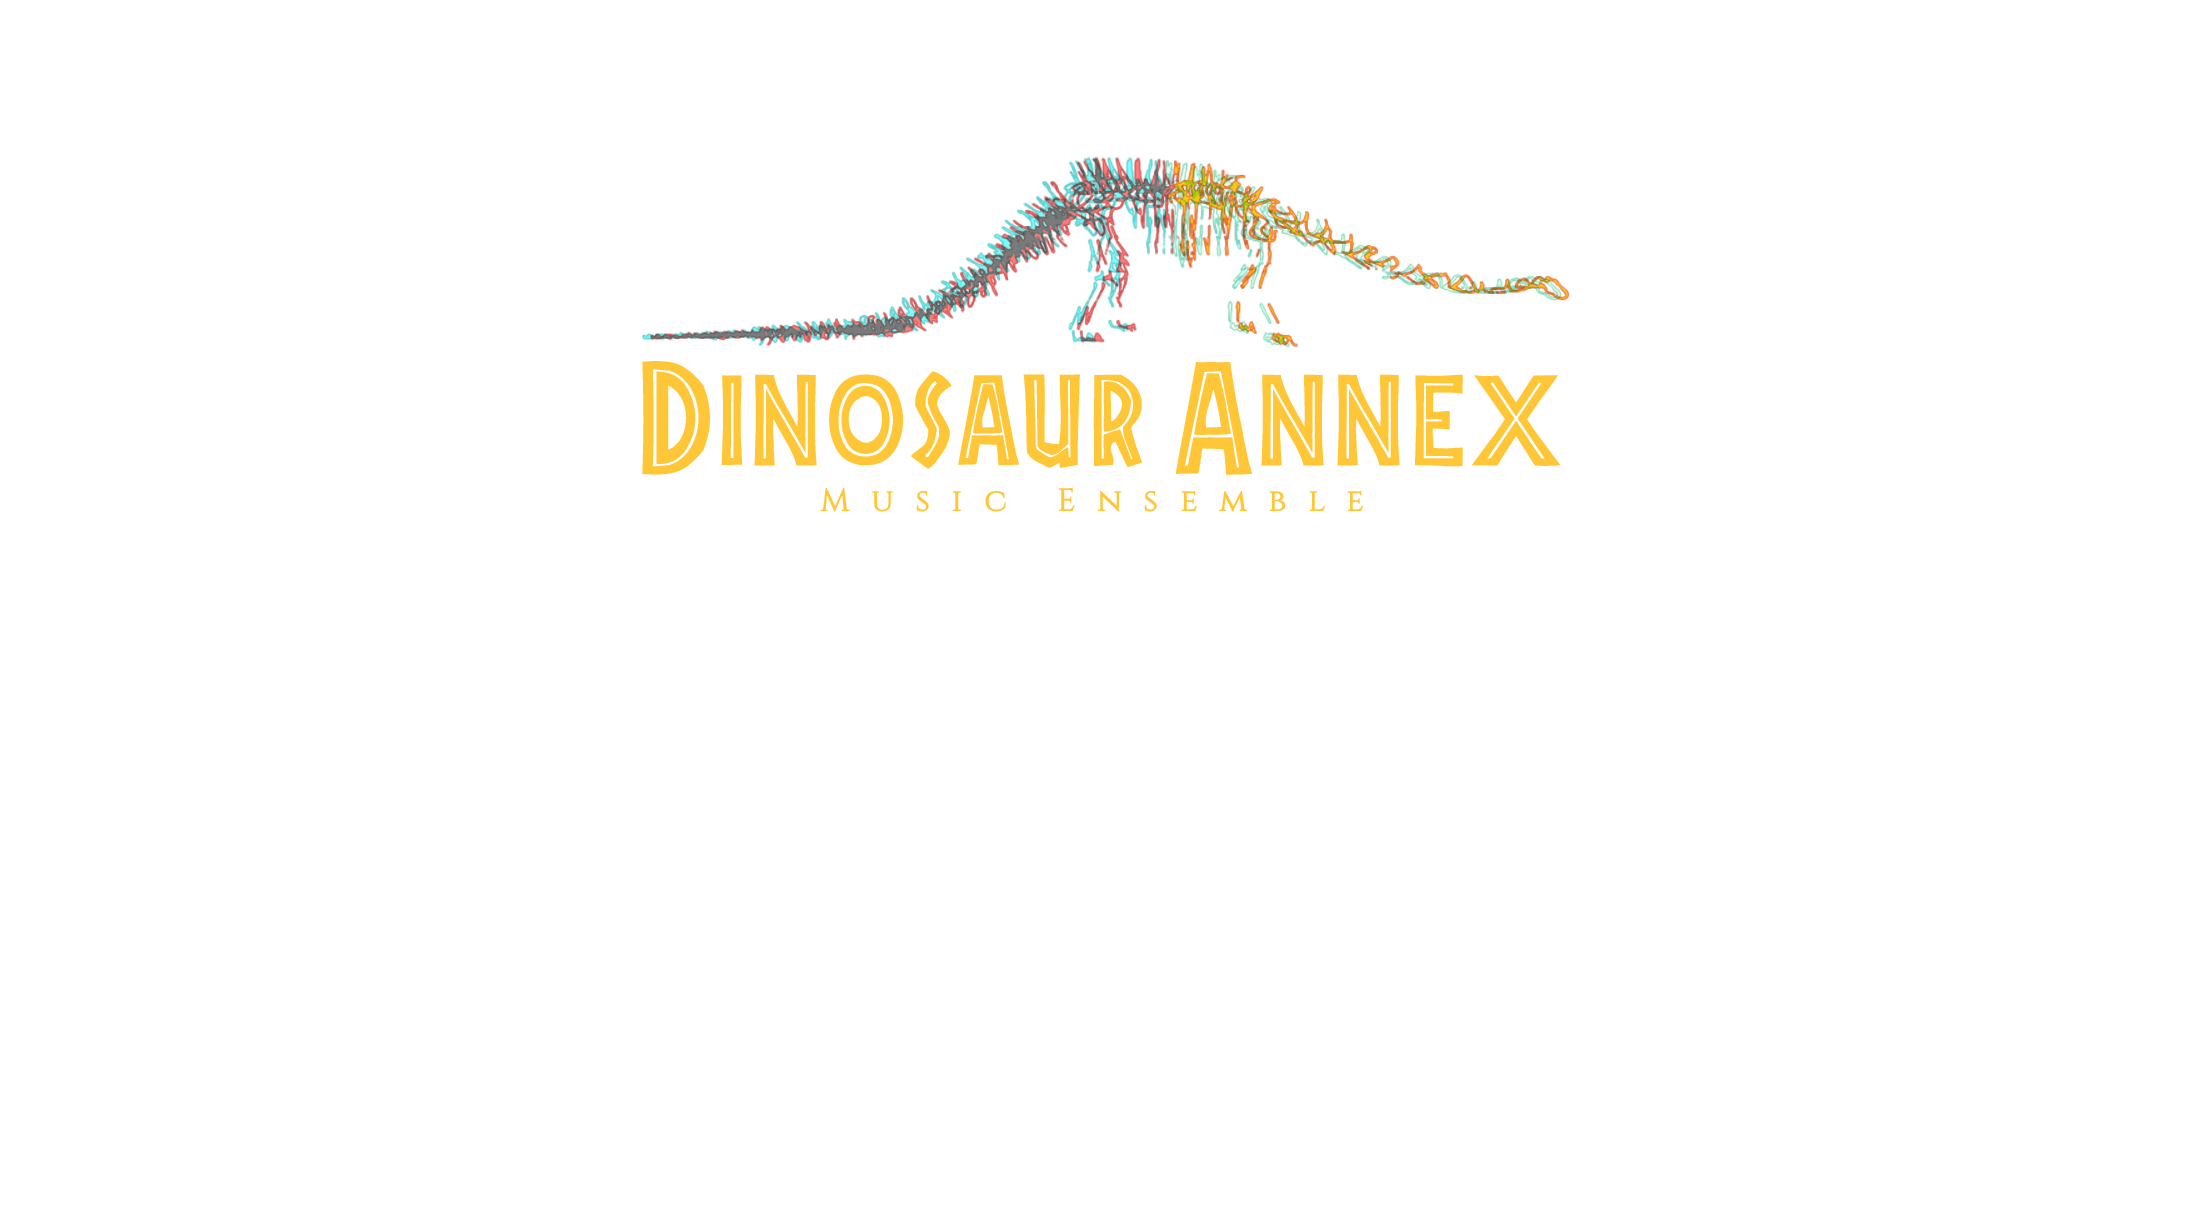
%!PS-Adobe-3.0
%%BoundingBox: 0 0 2205 1208
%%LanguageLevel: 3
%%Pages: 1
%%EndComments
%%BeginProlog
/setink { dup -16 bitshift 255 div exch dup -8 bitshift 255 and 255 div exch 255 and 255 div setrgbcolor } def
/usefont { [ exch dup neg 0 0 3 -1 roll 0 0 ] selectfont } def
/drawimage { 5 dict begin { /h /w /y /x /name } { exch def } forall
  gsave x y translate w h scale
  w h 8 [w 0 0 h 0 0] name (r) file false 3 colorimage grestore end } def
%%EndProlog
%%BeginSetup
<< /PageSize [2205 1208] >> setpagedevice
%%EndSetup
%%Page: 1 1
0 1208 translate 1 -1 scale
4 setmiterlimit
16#FFFFFF setink
0 0 2205 1208 rectfill
(img1.raw) 640 156 930 192 drawimage
/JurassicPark-Regular 220 usefont
16#FFC738 setink
642 473 moveto 11 0 (Dinosaur Annex) ashow
/Cinzel-Bold 31.25 usefont
820 511 moveto 21.9 0 (Music Ensemble) ashow
showpage
%%EOF
